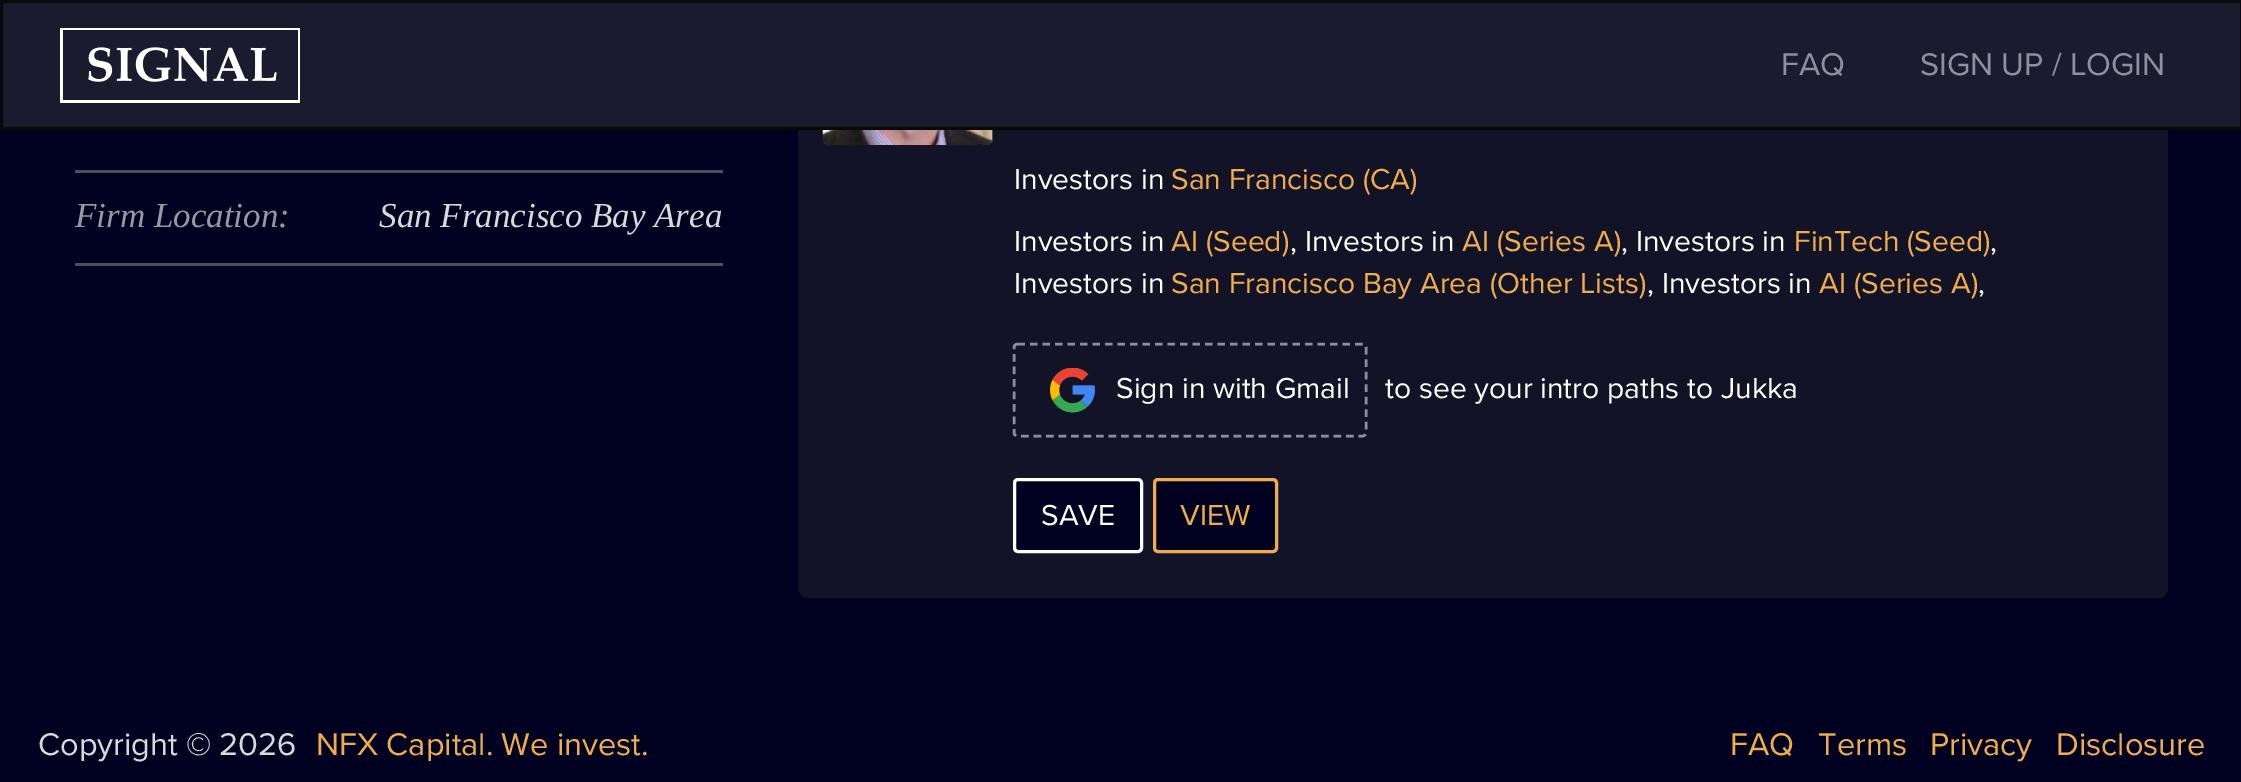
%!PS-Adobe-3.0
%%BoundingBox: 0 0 2241 782
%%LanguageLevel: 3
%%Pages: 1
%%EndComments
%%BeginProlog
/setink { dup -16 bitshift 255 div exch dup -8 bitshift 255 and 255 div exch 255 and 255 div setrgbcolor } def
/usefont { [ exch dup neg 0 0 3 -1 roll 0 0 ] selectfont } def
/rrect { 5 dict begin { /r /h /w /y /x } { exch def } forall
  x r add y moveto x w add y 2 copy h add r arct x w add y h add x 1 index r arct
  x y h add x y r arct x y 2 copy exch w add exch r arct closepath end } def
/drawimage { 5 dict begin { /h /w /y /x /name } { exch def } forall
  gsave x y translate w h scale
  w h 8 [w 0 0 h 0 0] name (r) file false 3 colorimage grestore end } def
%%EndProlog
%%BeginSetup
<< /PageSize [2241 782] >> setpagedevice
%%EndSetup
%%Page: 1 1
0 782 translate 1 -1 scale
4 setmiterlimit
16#000120 setink
0 0 2241 782 rectfill
16#121327 setink
798 -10 1370 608 10 rrect fill
16#2A2B3D setink
823 -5 170 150 5 rrect fill
16#1B1A2E setink
1.5 1.5 moveto 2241.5 1.5 lineto 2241.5 128.5 lineto 1.5 128.5 lineto closepath gsave fill grestore
16#090909 setink
3 setlinewidth
stroke
(img1.raw) 60 28 240 75 drawimage
/ProximaNova-Regular 32.5 usefont
16#8E8F9F setink
1781 75 moveto (FAQ) show
1920 75 moveto (SIGN UP / LOGIN) show
16#4D4D63 setink
75 170 648 3 rectfill
75 263 648 3 rectfill
/LiberationSerif-Italic 35 usefont
16#9999A6 setink
75 227 moveto (Firm Location:) show
16#D9D9D9 setink
379 227 moveto (San Francisco Bay Area) show
(img2.raw) 822 130 171 15 drawimage
/ProximaNova-Regular 30 usefont
16#FFFFFF setink
1014 189 moveto (Investors in) show
16#F0AD4E setink
1171 189 moveto (San Francisco \(CA\)) show
16#FFFFFF setink
1014 251 moveto (Investors in) show
16#F0AD4E setink
1171 251 moveto (AI \(Seed\)) show
16#FFFFFF setink
1290 251 moveto (, Investors in) show
16#F0AD4E setink
1462 251 moveto (AI \(Series A\)) show
16#FFFFFF setink
1621 251 moveto (, Investors in) show
16#F0AD4E setink
1794 251 moveto (FinTech \(Seed\)) show
16#FFFFFF setink
1990 251 moveto (,) show
1014 293 moveto (Investors in) show
16#F0AD4E setink
1171 293 moveto (San Francisco Bay Area \(Other Lists\)) show
16#FFFFFF setink
1647 293 moveto (, Investors in) show
16#F0AD4E setink
1819 293 moveto (AI \(Series A\)) show
16#FFFFFF setink
1978 293 moveto (,) show
16#8C8D9D setink
2.5 setlinewidth
[7.5 5] 0 setdash
1017.5 344 moveto 1362.5 344 lineto 1364.5 344 1366 345.5 1366 347.5 curveto 1366 432.5 lineto 1366 434.5 1364.5 436 1362.5 436 curveto 1017.5 436 lineto 1015.5 436 1014 434.5 1014 432.5 curveto 1014 347.5 lineto 1014 345.5 1015.5 344 1017.5 344 curveto closepath stroke
(img3.raw) 1050 368 45 45 drawimage
16#FFFFFF setink
1116 398 moveto (Sign in with Gmail) show
1385 398 moveto (to see your intro paths to Jukka) show
16#000120 setink
1014.5 479.5 127 72 3.5 rrect gsave fill grestore
16#FFFFFF setink
3 setlinewidth
[] 0 setdash
stroke
1041 525 moveto (SAVE) show
16#000120 setink
1154.5 479.5 122 72 3.5 rrect gsave fill grestore
16#F0AD4E setink
stroke
1180 525 moveto (VIEW) show
/ProximaNova-Regular 32.5 usefont
16#D9D9D9 setink
38 755 moveto (Copyright © 2026) show
16#F0AD4E setink
[
    [(NFX Capital. We invest.) 316 755]
    [(FAQ) 1730 755]
    [(Terms) 1818 755]
    [(Privacy) 1930 755]
    [(Disclosure) 2056 755]
] { aload pop moveto show } forall
showpage
%%EOF
